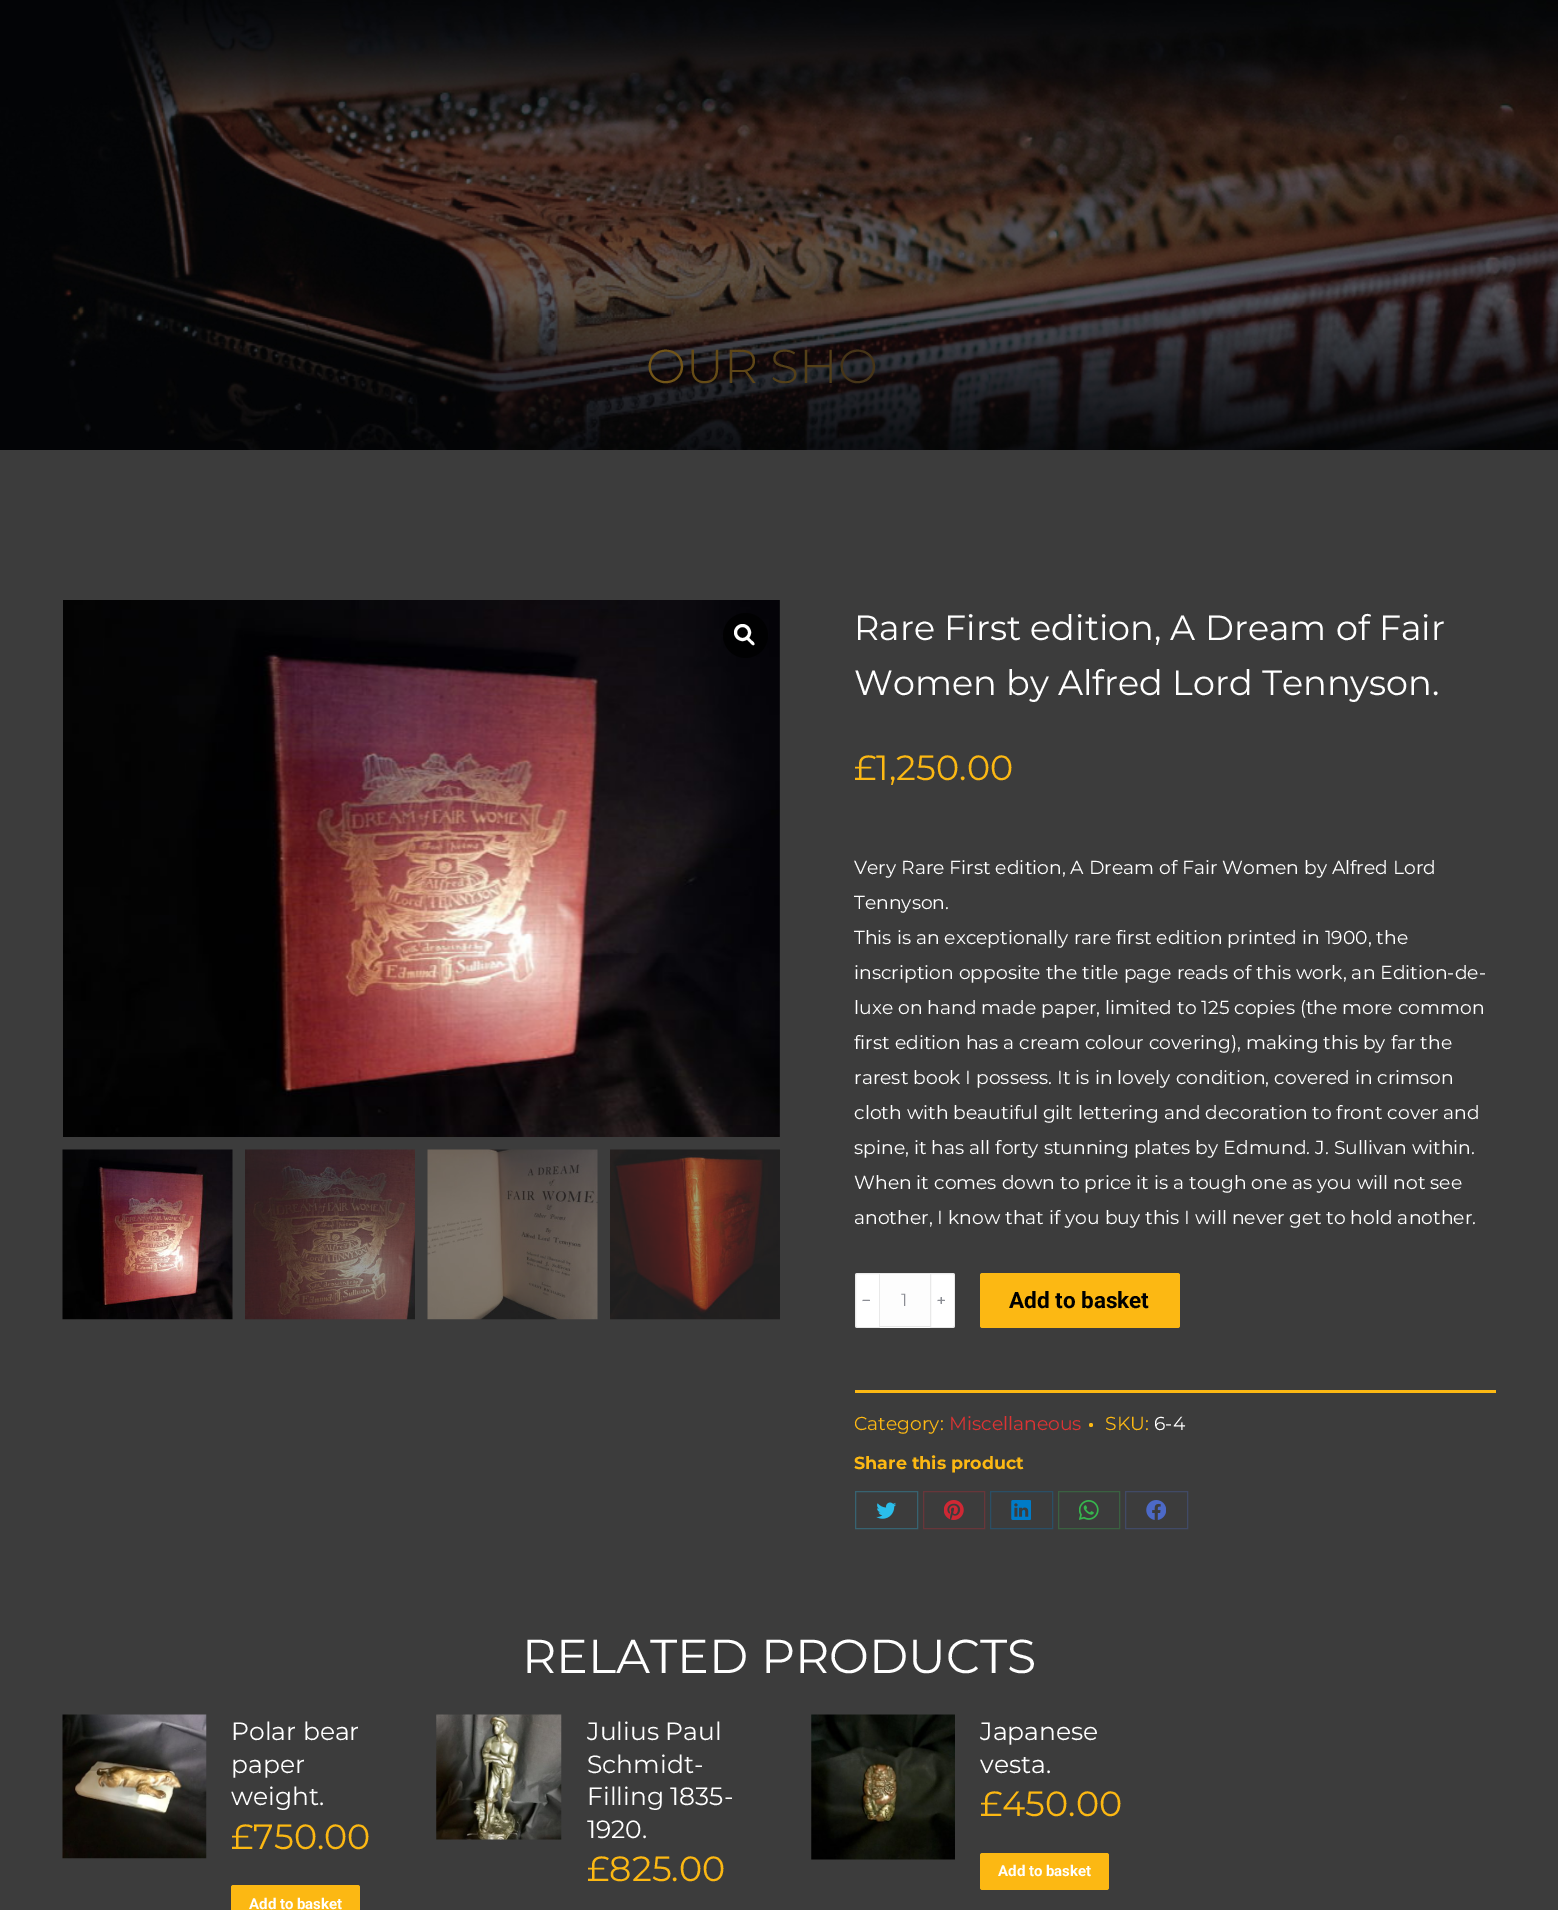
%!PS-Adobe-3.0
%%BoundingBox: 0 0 1558 1910
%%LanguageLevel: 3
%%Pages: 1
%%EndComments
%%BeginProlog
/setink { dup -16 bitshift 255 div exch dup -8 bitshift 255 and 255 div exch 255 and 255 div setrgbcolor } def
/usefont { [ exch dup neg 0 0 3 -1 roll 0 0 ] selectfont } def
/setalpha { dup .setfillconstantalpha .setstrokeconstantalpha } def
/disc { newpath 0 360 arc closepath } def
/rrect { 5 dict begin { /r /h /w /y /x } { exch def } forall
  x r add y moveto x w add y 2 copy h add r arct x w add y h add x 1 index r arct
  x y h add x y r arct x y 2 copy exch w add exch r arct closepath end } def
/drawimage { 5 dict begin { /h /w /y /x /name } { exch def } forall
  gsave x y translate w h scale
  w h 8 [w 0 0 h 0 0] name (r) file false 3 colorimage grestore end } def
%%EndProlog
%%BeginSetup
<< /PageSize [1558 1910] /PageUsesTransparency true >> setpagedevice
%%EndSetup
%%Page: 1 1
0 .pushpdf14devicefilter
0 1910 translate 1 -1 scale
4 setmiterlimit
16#3C3C3C setink
0 0 1558 1910 rectfill
(img1.raw) 0 0 1558 450 drawimage
/Montserrat-Thin 47.5 usefont
16#725518 setink
646 383 moveto (O) show
16#654B16 setink
686 383 moveto (U) show
16#5E4617 setink
724 383 moveto (R) show
16#544018 setink
770 383 moveto (S) show
799 383 moveto (H) show
16#463518 setink
838 383 moveto (O) show
(img3.raw) 779 600 1 537 drawimage
(img2.raw) 63 600 717 537 drawimage
0.8 setalpha
16#000000 setink
745.5 635.5 22.5 disc fill
1 setalpha
16#FFFFFF setink
3 setlinewidth
742.5 632.5 7 disc stroke
747 637.5 moveto 748.5 636.5 750.5 639.5 751.5 640.5 curveto 752.5 641 755.5 643.5 754 645 curveto 752.5 646 750.5 643 749.5 642 curveto 749 641.5 745.5 639 747 637.5 curveto closepath fill
(img4.raw) 62 1149 171 171 drawimage
(img5.raw) 245 1149 170 171 drawimage
(img6.raw) 427 1149 171 171 drawimage
(img7.raw) 610 1149 170 171 drawimage
/Montserrat-Regular 35 usefont
854 640 moveto (Rare First edition, A Dream of Fair) show
854 695 moveto (Women by Alfred Lord Tennyson.) show
16#FCB813 setink
854 780 moveto (£1,250.00) show
/Montserrat-Regular 18.75 usefont
16#FFFFFF setink
[
    [(Very Rare First edition, A Dream of Fair Women by Alfred Lord) 854 874]
    [(Tennyson.) 854 909]
    [(This is an exceptionally rare first edition printed in 1900, the) 854 944]
    [(inscription opposite the title page reads of this work, an Edition-de-) 854 979]
    [(luxe on hand made paper, limited to 125 copies \(the more common) 854 1014]
    [(first edition has a cream colour covering\), making this by far the) 854 1049]
    [(rarest book I possess. It is in lovely condition, covered in crimson) 854 1084]
    [(cloth with beautiful gilt lettering and decoration to front cover and) 854 1119]
    [(spine, it has all forty stunning plates by Edmund. J. Sullivan within.) 854 1154]
    [(When it comes down to price it is a tough one as you will not see) 854 1189]
    [(another, I know that if you buy this I will never get to hold another.) 854 1224]
] { aload pop moveto show } forall
857.5 1273 moveto 880 1273 lineto 880 1328 lineto 857.5 1328 lineto 856 1328 855 1327 855 1325.5 curveto 855 1275.5 lineto 855 1274 856 1273 857.5 1273 curveto closepath fill
0.11 setalpha
16#333333 setink
1 setlinewidth
857.5 1273.5 moveto 879.5 1273.5 lineto 879.5 1327.5 lineto 857.5 1327.5 lineto 856.5 1327.5 855.5 1326.5 855.5 1325.5 curveto 855.5 1275.5 lineto 855.5 1274.5 856.5 1273.5 857.5 1273.5 curveto closepath stroke
/WenQuanYiZenHei-Bold 17.5 usefont
1 setalpha
16#8B8D94 setink
858 1306 moveto (﹣) show
[
    [880 1274 50 54 16#FDFDFD]
    [880 1273 50 1 16#E7E7E7]
    [880 1326 50 1 16#E7E7E7]
] { aload pop setink rectfill } forall
/Montserrat-Regular 17.5 usefont
16#8B8D94 setink
901 1306 moveto (1) show
16#FFFFFF setink
930 1273 moveto 952.5 1273 lineto 954 1273 955 1274 955 1275.5 curveto 955 1325.5 lineto 955 1327 954 1328 952.5 1328 curveto 930 1328 lineto closepath fill
0.11 setalpha
16#333333 setink
930.5 1273.5 moveto 952.5 1273.5 lineto 953.5 1273.5 954.5 1274.5 954.5 1275.5 curveto 954.5 1325.5 lineto 954.5 1326.5 953.5 1327.5 952.5 1327.5 curveto 930.5 1327.5 lineto closepath stroke
/WenQuanYiZenHei-Bold 17.5 usefont
1 setalpha
16#8B8D94 setink
933 1306 moveto (﹢) show
16#FCB813 setink
980 1273 200 55 2.5 rrect fill
/Roboto-Bold 22.5 usefont
16#000000 setink
1009 1308 moveto (Add to basket) show
16#FCB813 setink
855 1390 641 3 rectfill
/Montserrat-Regular 18.75 usefont
854 1430 moveto (Category:) show
16#DD3333 setink
949 1430 moveto (Miscellaneous) show
16#FCB813 setink
1091 1425 2 disc fill
1105 1430 moveto (SKU:) show
16#FFFFFF setink
1154 1430 moveto (6-4) show
/Montserrat-Bold 17.5 usefont
16#FCB813 setink
854 1469 moveto (Share this product) show
16#376371 setink
855.5 1491.5 62 37 rectstroke
(img8.raw) 876 1502 20 17 drawimage
16#68363A setink
923.5 1491.5 61 37 rectstroke
(img9.raw) 944 1500 20 20 drawimage
16#2A4F66 setink
990.5 1491.5 62 37 rectstroke
(img10.raw) 1011 1500 20 20 drawimage
16#3A6141 setink
1058.5 1491.5 61 37 rectstroke
(img11.raw) 1079 1500 20 20 drawimage
16#414A66 setink
1125.5 1491.5 62 37 rectstroke
(img12.raw) 1146 1500 20 20 drawimage
/Montserrat-Regular 47.5 usefont
16#FFFFFF setink
522 1673 moveto (RELATED PRODUCTS) show
(img13.raw) 62 1714 145 145 drawimage
/Montserrat-Regular 25 usefont
[
    [(Polar bear) 231 1740]
    [(paper) 231 1773]
    [(weight.) 231 1805]
] { aload pop moveto show } forall
/Montserrat-Regular 35 usefont
16#FCB813 setink
231 1849 moveto (£750.00) show
231 1885 129 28 2.5 rrect fill
/Roboto-Bold 15 usefont
16#FFFFFF setink
249 1909 moveto (Add to basket) show
(img14.raw) 436 1714 126 126 drawimage
/Montserrat-Regular 25 usefont
[
    [(Julius Paul) 587 1740]
    [(Schmidt-) 587 1773]
    [(Filling 1835-) 587 1805]
    [(1920.) 587 1838]
] { aload pop moveto show } forall
/Montserrat-Regular 35 usefont
16#FCB813 setink
587 1881 moveto (£825.00) show
(img15.raw) 811 1714 144 146 drawimage
/Montserrat-Regular 25 usefont
16#FFFFFF setink
980 1740 moveto (Japanese) show
980 1773 moveto (vesta.) show
/Montserrat-Regular 35 usefont
16#FCB813 setink
980 1816 moveto (£450.00) show
980 1853 129 37 2.5 rrect fill
/Roboto-Bold 15 usefont
16#FFFFFF setink
998 1876 moveto (Add to basket) show
.poppdf14devicefilter showpage
%%EOF
